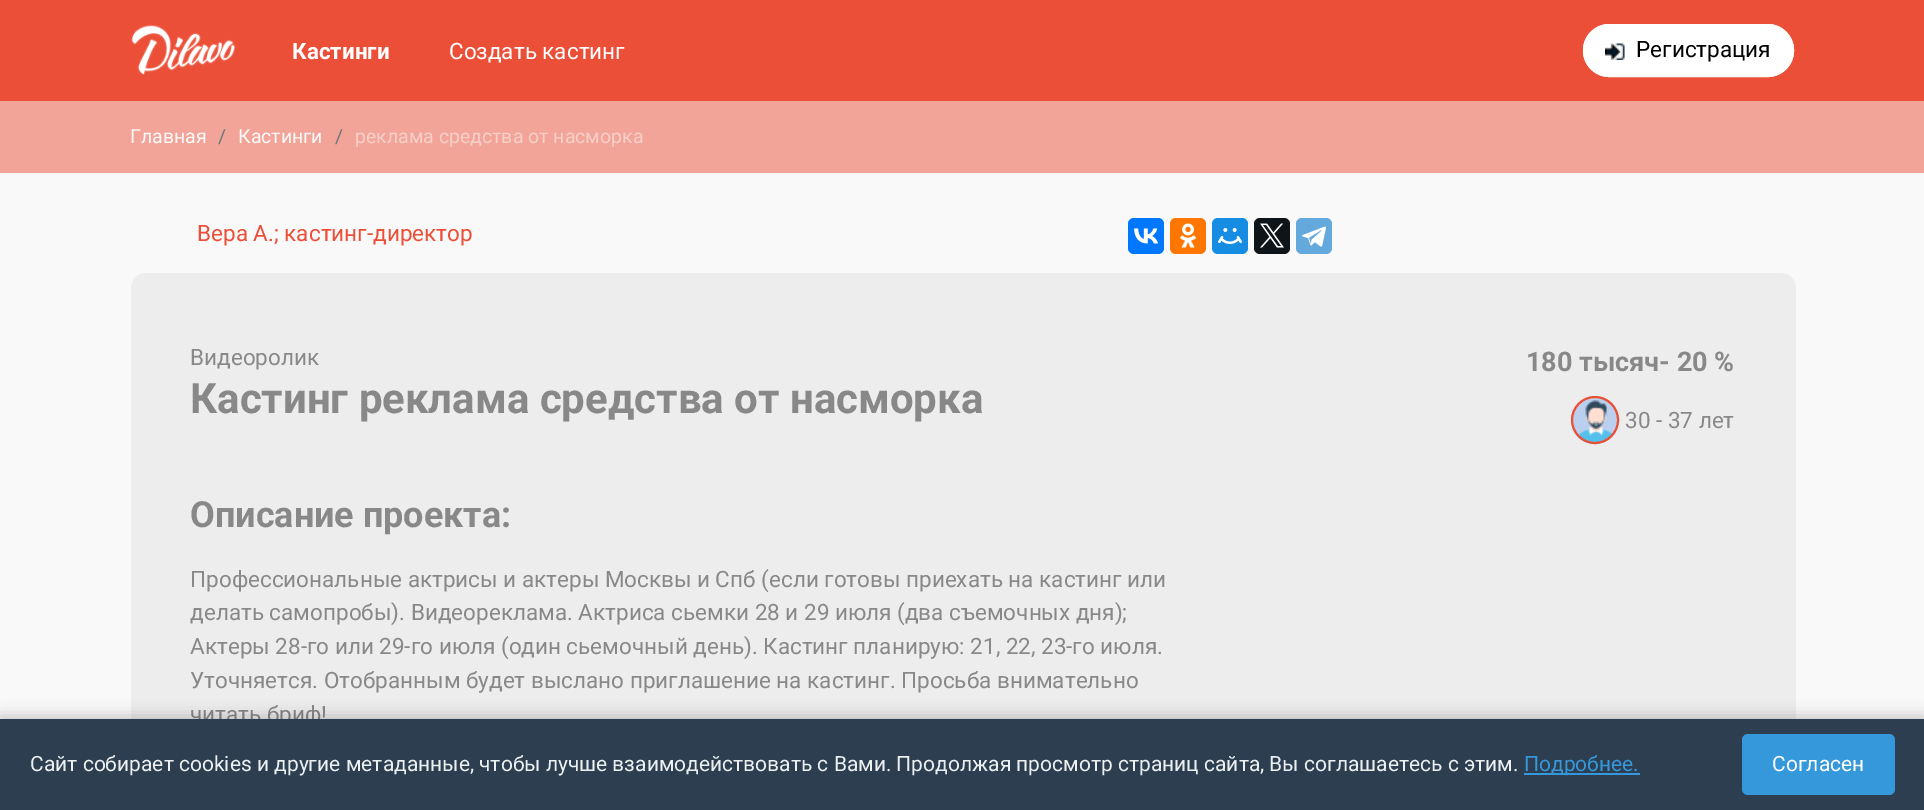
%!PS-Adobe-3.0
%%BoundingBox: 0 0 1924 810
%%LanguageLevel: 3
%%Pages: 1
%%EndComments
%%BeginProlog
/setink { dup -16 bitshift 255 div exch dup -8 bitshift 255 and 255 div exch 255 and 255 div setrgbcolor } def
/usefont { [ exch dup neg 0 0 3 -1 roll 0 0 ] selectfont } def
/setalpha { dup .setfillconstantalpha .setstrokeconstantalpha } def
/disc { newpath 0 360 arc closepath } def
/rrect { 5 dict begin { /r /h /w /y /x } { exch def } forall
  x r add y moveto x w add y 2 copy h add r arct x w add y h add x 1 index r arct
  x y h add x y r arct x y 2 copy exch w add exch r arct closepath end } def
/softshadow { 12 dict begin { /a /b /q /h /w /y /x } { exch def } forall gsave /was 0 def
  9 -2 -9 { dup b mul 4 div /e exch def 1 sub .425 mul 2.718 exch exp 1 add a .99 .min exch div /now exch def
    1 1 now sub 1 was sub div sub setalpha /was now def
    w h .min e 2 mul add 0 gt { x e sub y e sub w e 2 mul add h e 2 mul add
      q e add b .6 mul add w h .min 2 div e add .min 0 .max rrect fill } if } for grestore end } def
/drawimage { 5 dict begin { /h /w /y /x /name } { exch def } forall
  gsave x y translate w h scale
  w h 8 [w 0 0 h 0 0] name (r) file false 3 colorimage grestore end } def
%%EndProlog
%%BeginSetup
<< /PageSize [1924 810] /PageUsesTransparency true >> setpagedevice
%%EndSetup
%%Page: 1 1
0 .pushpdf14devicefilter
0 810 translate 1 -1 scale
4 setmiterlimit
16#F9F9F9 setink
0 0 1924 810 rectfill
16#EC4F38 setink
0 0 1924 101 rectfill
(img1.raw) 131 24 105 51 drawimage
/Roboto-Bold 22.5 usefont
16#FFFFFF setink
292 59 moveto (Кастинги) show
/Roboto-Regular 22.5 usefont
449 59 moveto (Создать кастинг) show
1583 24 211 53 26.5 rrect fill
(img2.raw) 1605 43 20 17 drawimage
2 setlinewidth
1584 25 209 51 25.5 rrect stroke
16#000000 setink
1636 57 moveto (Регистрация) show
16#F2A498 setink
0 101 1924 72 rectfill
/Roboto-Regular 19.5 usefont
16#F9F9F9 setink
130 143 moveto (Главная) show
16#6C757D setink
218 143 moveto (/) show
16#F9F9F9 setink
238 143 moveto (Кастинги) show
16#6C757D setink
335 143 moveto (/) show
16#F6CFC9 setink
355 143 moveto (реклама средства от насморка) show
/Roboto-Regular 22.5 usefont
16#EC4F38 setink
197 241 moveto (Вера А.; кастинг-директор) show
16#0077FF setink
1128 218 36 36 6 rrect fill
(img3.raw) 1134 228 24 16 drawimage
16#FF7700 setink
1170 218 36 36 6 rrect fill
(img4.raw) 1180 223 16 25 drawimage
16#168DE2 setink
1212 218 36 36 6 rrect fill
(img5.raw) 1218 228 24 16 drawimage
16#0F1419 setink
1254 218 36 36 6 rrect fill
(img6.raw) 1260 223 24 25 drawimage
16#64A9DC setink
1296 218 36 36 6 rrect fill
(img7.raw) 1302 226 24 21 drawimage
16#EDEDED setink
131 273 1665 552 15 rrect fill
16#888888 setink
190 365 moveto (Видеоролик) show
/Roboto-Bold 42 usefont
190 413 moveto (Кастинг реклама средства от насморка) show
/Roboto-Bold 27 usefont
1526 371 moveto (180 тысяч- 20 %) show
(img8.raw) 1572 397 47 47 drawimage
16#EC4F38 setink
1595 420 23 disc stroke
/Roboto-Regular 22.5 usefont
16#888888 setink
1625 428 moveto (30 - 37 лет) show
/Roboto-Bold 36 usefont
190 527 moveto (Описание проекта:) show
/Roboto-Regular 22.5 usefont
[
    [(Профессиональные актрисы и актеры Москвы и Спб \(если готовы приехать на кастинг или) 190 587]
    [(делать самопробы\). Видеореклама. Актриса сьемки 28 и 29 июля \(два съемочных дня\);) 190 620]
    [(Актеры 28-го или 29-го июля \(один сьемочный день\). Кастинг планирую: 21, 22, 23-го июля.) 190 654]
    [(Уточняется. Отобранным будет выслано приглашение на кастинг. Просьба внимательно) 190 688]
    [(читать бриф!) 190 722]
] { aload pop moveto show } forall
16#000000 setink
0 716 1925 91 0 7.5 0.2 softshadow
16#2C3E50 setink
0 719 1924 91 rectfill
/Roboto-Regular 21 usefont
16#ECF0F1 setink
30 771 moveto (Сайт собирает cookies и другие метаданные, чтобы лучше взаимодействовать с Вами. Продолжая просмотр страниц сайта, Вы соглашаетесь с этим.) show
16#3498DB setink
1524 773 116 2 rectfill
1524 771 moveto (Подробнее.) show
1742 734 153 61 6 rrect fill
16#FFFFFF setink
1772 771 moveto (Согласен) show
.poppdf14devicefilter showpage
%%EOF
